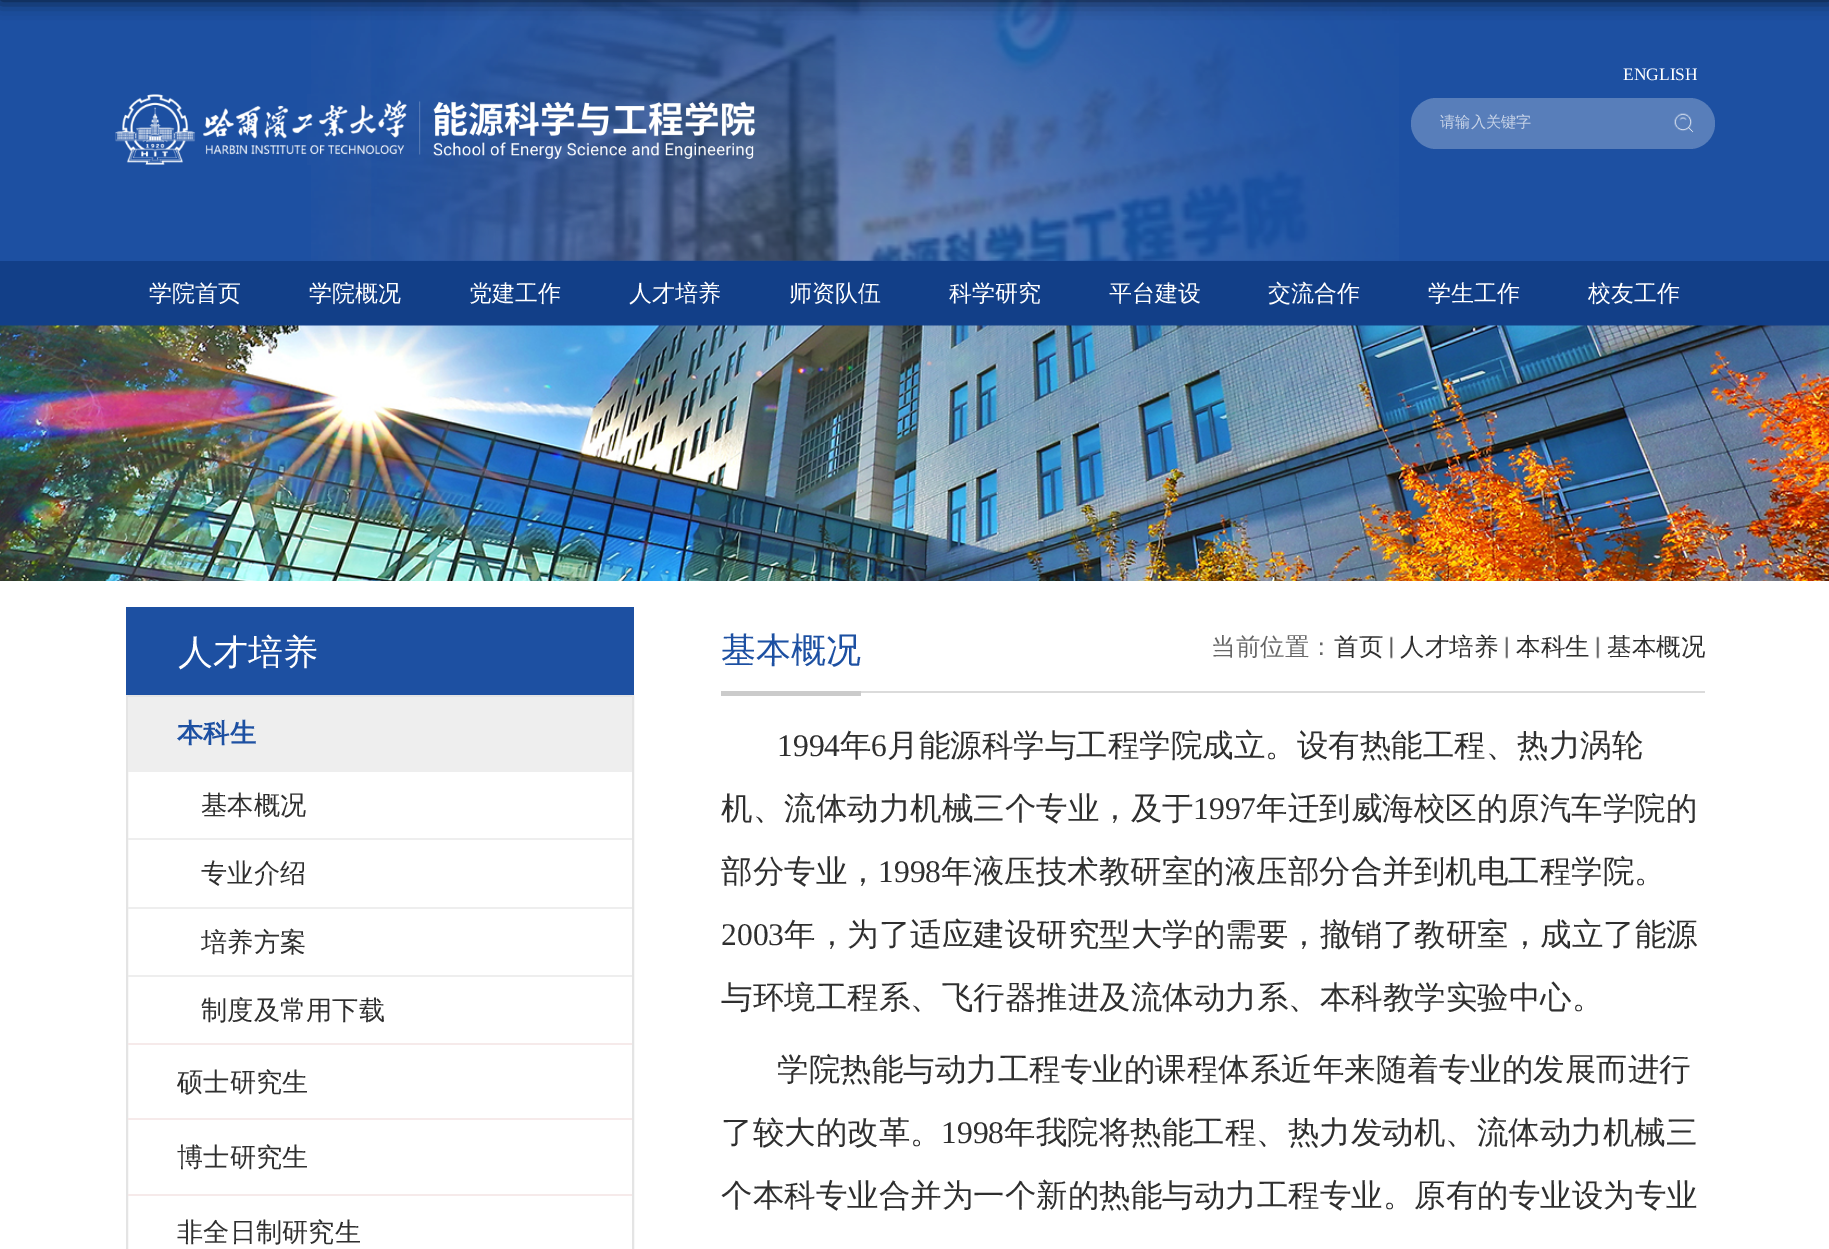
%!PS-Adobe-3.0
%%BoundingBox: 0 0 1829 1249
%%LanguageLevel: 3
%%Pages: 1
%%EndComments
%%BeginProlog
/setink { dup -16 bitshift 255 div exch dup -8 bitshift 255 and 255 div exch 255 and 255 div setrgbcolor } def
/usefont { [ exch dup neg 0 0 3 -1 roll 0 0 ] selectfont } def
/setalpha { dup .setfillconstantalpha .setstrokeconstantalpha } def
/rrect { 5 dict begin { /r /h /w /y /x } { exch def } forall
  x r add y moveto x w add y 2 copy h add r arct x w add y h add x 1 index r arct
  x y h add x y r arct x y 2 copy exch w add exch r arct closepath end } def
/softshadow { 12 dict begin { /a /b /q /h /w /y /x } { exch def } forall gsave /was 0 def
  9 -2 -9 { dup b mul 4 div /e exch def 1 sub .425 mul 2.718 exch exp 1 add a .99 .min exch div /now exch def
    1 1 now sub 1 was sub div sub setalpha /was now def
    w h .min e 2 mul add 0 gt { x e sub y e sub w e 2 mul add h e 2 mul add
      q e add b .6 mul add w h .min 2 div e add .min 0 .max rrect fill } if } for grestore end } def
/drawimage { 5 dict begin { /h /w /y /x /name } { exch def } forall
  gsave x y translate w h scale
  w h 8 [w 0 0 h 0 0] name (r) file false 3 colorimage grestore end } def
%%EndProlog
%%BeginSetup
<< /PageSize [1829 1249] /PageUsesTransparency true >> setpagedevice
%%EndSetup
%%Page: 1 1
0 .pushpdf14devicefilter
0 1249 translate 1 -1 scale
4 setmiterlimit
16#FFFFFF setink
0 0 1829 1249 rectfill
16#1D50A2 setink
0 0 1829 261 rectfill
(img1.raw) 311 0 1088 261 drawimage
16#000000 setink
0 -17 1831 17 0 9 0.8 softshadow
(img2.raw) 115 94 641 71 drawimage
/LiberationSerif-Regular 17.5 usefont
16#FFFFFF setink
1623 80 moveto (ENGLISH) show
16#587EBA setink
1411 98 304 51 25.5 rrect fill
/WenQuanYiZenHei-Medium 15.25 usefont
16#C8D4E8 setink
1440 127 moveto (请输入关键字) show
(img3.raw) 1674 113 20 20 drawimage
16#123F88 setink
0 261 1829 65 rectfill
/WenQuanYiZenHei-Medium 23 usefont
16#FFFFFF setink
[
    [(学院首页) 149 301]
    [(学院概况) 309 301]
    [(党建工作) 469 301]
    [(人才培养) 629 301]
    [(师资队伍) 789 301]
    [(科学研究) 949 301]
    [(平台建设) 1109 301]
    [(交流合作) 1268 301]
    [(学生工作) 1428 301]
    [(校友工作) 1588 301]
] { aload pop moveto show } forall
(img4.raw) 0 325 1829 256 drawimage
16#1D50A2 setink
126 607 508 88 rectfill
/WenQuanYiZenHei-Medium 35 usefont
16#FFFFFF setink
178 664 moveto (人才培养) show
16#E4E4E4 setink
2 setlinewidth
127 696 506 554 rectstroke
16#EEEEEE setink
128 697 504 75 rectfill
/WenQuanYiZenHei-Bold 26.25 usefont
16#1D50A2 setink
177 742 moveto (本科生) show
/WenQuanYiZenHei-Medium 26.25 usefont
16#2F2F2F setink
201 814 moveto (基本概况) show
16#EEEEEE setink
128 838 504 2 rectfill
16#2F2F2F setink
201 882 moveto (专业介绍) show
16#EEEEEE setink
128 907 504 2 rectfill
16#2F2F2F setink
201 951 moveto (培养方案) show
16#EEEEEE setink
128 975 504 2 rectfill
16#F6EAEA setink
128 1043 504 2 rectfill
16#2F2F2F setink
201 1019 moveto (制度及常用下载) show
16#F6EAEA setink
128 1118 504 2 rectfill
16#2F2F2F setink
177 1091 moveto (硕士研究生) show
16#F6EAEA setink
128 1194 504 2 rectfill
16#2F2F2F setink
177 1166 moveto (博士研究生) show
177 1241 moveto (非全日制研究生) show
16#DBDBDB setink
861 691 844 2 rectfill
16#CBCBCB setink
721 691 140 5 rectfill
/WenQuanYiZenHei-Medium 35 usefont
16#1D50A2 setink
721 662 moveto (基本概况) show
/WenQuanYiZenHei-Medium 24.5 usefont
16#666666 setink
1211 655 moveto (当前位置：) show
16#2F2F2F setink
1334 655 moveto (首页) show
(img5.raw) 1390 636 3 23 drawimage
1400 655 moveto (人才培养) show
(img6.raw) 1505 636 3 23 drawimage
1516 655 moveto (本科生) show
(img7.raw) 1596 636 4 23 drawimage
1607 655 moveto (基本概况) show
/LiberationSerif-Regular 31.5 usefont
777 756 moveto (1994) show
/WenQuanYiZenHei-Medium 31.5 usefont
840 756 moveto (年) show
/LiberationSerif-Regular 31.5 usefont
871 756 moveto (6) show
/WenQuanYiZenHei-Medium 31.5 usefont
887 756 moveto (月能源科学与工程学院成立。设有热能工程、热力涡轮) show
721 819 moveto (机、流体动力机械三个专业，及于) show
/LiberationSerif-Regular 31.5 usefont
1193 819 moveto (1997) show
/WenQuanYiZenHei-Medium 31.5 usefont
1256 819 moveto (年迁到威海校区的原汽车学院的) show
721 882 moveto (部分专业，) show
/LiberationSerif-Regular 31.5 usefont
878 882 moveto (1998) show
/WenQuanYiZenHei-Medium 31.5 usefont
941 882 moveto (年液压技术教研室的液压部分合并到机电工程学院。) show
/LiberationSerif-Regular 31.5 usefont
721 945 moveto (2003) show
/WenQuanYiZenHei-Medium 31.5 usefont
[
    [(年，为了适应建设研究型大学的需要，撤销了教研室，成立了能源) 784 945]
    [(与环境工程系、飞行器推进及流体动力系、本科教学实验中心。) 721 1008]
    [(学院热能与动力工程专业的课程体系近年来随着专业的发展而进行) 777 1080]
    [(了较大的改革。) 721 1143]
] { aload pop moveto show } forall
/LiberationSerif-Regular 31.5 usefont
941 1143 moveto (1998) show
/WenQuanYiZenHei-Medium 31.5 usefont
1004 1143 moveto (年我院将热能工程、热力发动机、流体动力机械三) show
721 1206 moveto (个本科专业合并为一个新的热能与动力工程专业。原有的专业设为专业) show
.poppdf14devicefilter showpage
%%EOF
